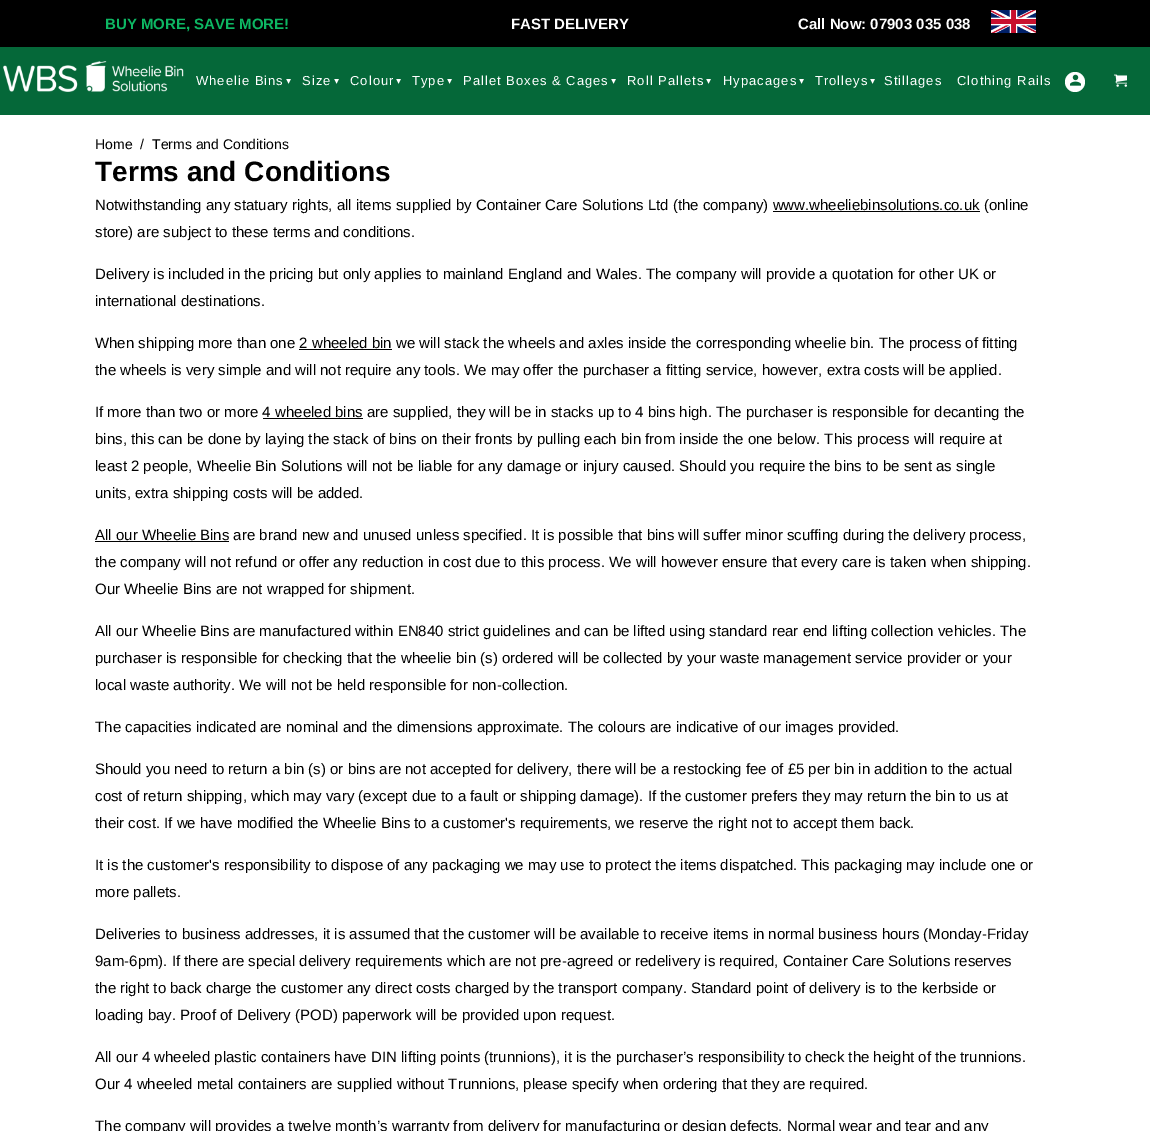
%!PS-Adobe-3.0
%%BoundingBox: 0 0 1150 1131
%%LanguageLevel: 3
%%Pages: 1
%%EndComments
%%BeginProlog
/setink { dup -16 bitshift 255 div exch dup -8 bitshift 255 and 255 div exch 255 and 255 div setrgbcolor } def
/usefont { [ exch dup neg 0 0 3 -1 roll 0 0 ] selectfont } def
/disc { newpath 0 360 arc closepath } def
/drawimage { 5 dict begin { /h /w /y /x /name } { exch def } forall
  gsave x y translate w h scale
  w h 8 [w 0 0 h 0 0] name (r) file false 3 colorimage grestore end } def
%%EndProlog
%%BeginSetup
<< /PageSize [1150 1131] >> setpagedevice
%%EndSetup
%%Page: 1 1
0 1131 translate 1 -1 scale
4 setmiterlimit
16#FFFFFF setink
0 0 1150 1131 rectfill
16#000000 setink
0 0 1150 47 rectfill
/LiberationSans-Bold 15 usefont
16#0DB763 setink
105 29 moveto (BUY MORE, SAVE MORE!) show
16#FFFFFF setink
511 29 moveto (FAST DELIVERY) show
798 29 moveto (Call Now: 07903 035 038) show
(img1.raw) 991 10 45 23 drawimage
16#056839 setink
0 47 1150 68 rectfill
(img2.raw) 3 61 181 31 drawimage
/LiberationSans-Regular 13 usefont
16#FFFFFF setink
196 85 moveto 1 0 (Wheelie Bins) ashow
/DejaVuSans-Regular 10 usefont
286 84 moveto (▾) show
/LiberationSans-Regular 13 usefont
302 85 moveto 1 0 (Size) ashow
/DejaVuSans-Regular 10 usefont
334 84 moveto (▾) show
/LiberationSans-Regular 13 usefont
350 85 moveto 1 0 (Colour) ashow
/DejaVuSans-Regular 10 usefont
396 84 moveto (▾) show
/LiberationSans-Regular 13 usefont
412 85 moveto 1 0 (Type) ashow
/DejaVuSans-Regular 10 usefont
447 84 moveto (▾) show
/LiberationSans-Regular 13 usefont
463 85 moveto 1 0 (Pallet Boxes & Cages) ashow
/DejaVuSans-Regular 10 usefont
611 84 moveto (▾) show
/LiberationSans-Regular 13 usefont
627 85 moveto 1 0 (Roll Pallets) ashow
/DejaVuSans-Regular 10 usefont
706 84 moveto (▾) show
/LiberationSans-Regular 13 usefont
723 85 moveto 1 0 (Hypacages) ashow
/DejaVuSans-Regular 10 usefont
799 84 moveto (▾) show
/LiberationSans-Regular 13 usefont
815 85 moveto 1 0 (Trolleys) ashow
/DejaVuSans-Regular 10 usefont
870 84 moveto (▾) show
/LiberationSans-Regular 13 usefont
884 85 moveto 1 0 (Stillages) ashow
957 85 moveto 1 0 (Clothing Rails) ashow
1075 82 10 disc fill
(img3.raw) 1070 74 11 12 drawimage
(img4.raw) 1114 74 13 13 drawimage
/LiberationSans-Regular 14 usefont
16#000000 setink
[
    [(Home) 95 149]
    [(/) 140 149]
    [(Terms and Conditions) 152 149]
] { aload pop moveto show } forall
/LiberationSans-Bold 28 usefont
95 181 moveto (Terms and Conditions) show
/LiberationSans-Regular 15 usefont
95 210 moveto (Notwithstanding any statuary rights, all items supplied by Container Care Solutions Ltd \(the company\) www.wheeliebinsolutions.co.uk \(online) show
773 211 207 1 rectfill
[
    [(store\) are subject to these terms and conditions.) 95 237]
    [(Delivery is included in the pricing but only applies to mainland England and Wales. The company will provide a quotation for other UK or) 95 279]
    [(international destinations.) 95 306]
    [(When shipping more than one 2 wheeled bin we will stack the wheels and axles inside the corresponding wheelie bin. The process of fitting) 95 348]
] { aload pop moveto show } forall
299 349 93 1 rectfill
95 375 moveto (the wheels is very simple and will not require any tools. We may offer the purchaser a fitting service, however, extra costs will be applied.) show
95 417 moveto (If more than two or more 4 wheeled bins are supplied, they will be in stacks up to 4 bins high. The purchaser is responsible for decanting the) show
263 418 100 1 rectfill
[
    [(bins, this can be done by laying the stack of bins on their fronts by pulling each bin from inside the one below. This process will require at) 95 444]
    [(least 2 people, Wheelie Bin Solutions will not be liable for any damage or injury caused. Should you require the bins to be sent as single) 95 471]
    [(units, extra shipping costs will be added.) 95 498]
] { aload pop moveto show } forall
95 541 134 1 rectfill
[
    [(All our Wheelie Bins are brand new and unused unless specified. It is possible that bins will suffer minor scuffing during the delivery process,) 95 540]
    [(the company will not refund or offer any reduction in cost due to this process. We will however ensure that every care is taken when shipping.) 95 567]
    [(Our Wheelie Bins are not wrapped for shipment.) 95 594]
    [(All our Wheelie Bins are manufactured within EN840 strict guidelines and can be lifted using standard rear end lifting collection vehicles. The) 95 636]
    [(purchaser is responsible for checking that the wheelie bin \(s\) ordered will be collected by your waste management service provider or your) 95 663]
    [(local waste authority. We will not be held responsible for non-collection.) 95 690]
    [(The capacities indicated are nominal and the dimensions approximate. The colours are indicative of our images provided.) 95 732]
    [(Should you need to return a bin \(s\) or bins are not accepted for delivery, there will be a restocking fee of £5 per bin in addition to the actual) 95 774]
    [(cost of return shipping, which may vary \(except due to a fault or shipping damage\). If the customer prefers they may return the bin to us at) 95 801]
    [(their cost. If we have modified the Wheelie Bins to a customer's requirements, we reserve the right not to accept them back.) 95 828]
    [(It is the customer's responsibility to dispose of any packaging we may use to protect the items dispatched. This packaging may include one or) 95 870]
    [(more pallets.) 95 897]
    [(Deliveries to business addresses, it is assumed that the customer will be available to receive items in normal business hours \(Monday-Friday) 95 939]
    [(9am-6pm\). If there are special delivery requirements which are not pre-agreed or redelivery is required, Container Care Solutions reserves) 95 966]
    [(the right to back charge the customer any direct costs charged by the transport company. Standard point of delivery is to the kerbside or) 95 993]
    [(loading bay. Proof of Delivery \(POD\) paperwork will be provided upon request.) 95 1020]
    [(All our 4 wheeled plastic containers have DIN lifting points \(trunnions\), it is the purchaser’s responsibility to check the height of the trunnions.) 95 1062]
    [(Our 4 wheeled metal containers are supplied without Trunnions, please specify when ordering that they are required.) 95 1089]
    [(The company will provides a twelve month’s warranty from delivery for manufacturing or design defects. Normal wear and tear and any) 95 1131]
] { aload pop moveto show } forall
showpage
%%EOF
